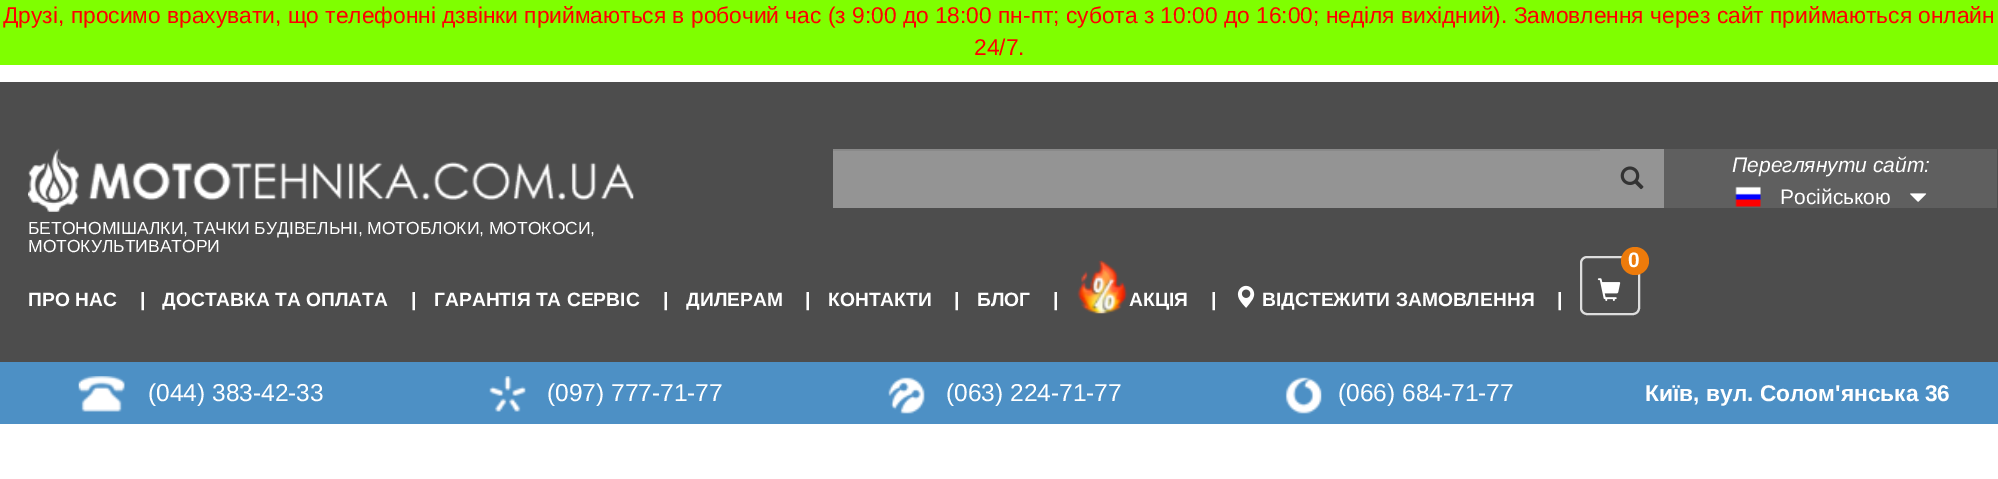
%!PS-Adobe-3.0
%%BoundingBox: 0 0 1998 479
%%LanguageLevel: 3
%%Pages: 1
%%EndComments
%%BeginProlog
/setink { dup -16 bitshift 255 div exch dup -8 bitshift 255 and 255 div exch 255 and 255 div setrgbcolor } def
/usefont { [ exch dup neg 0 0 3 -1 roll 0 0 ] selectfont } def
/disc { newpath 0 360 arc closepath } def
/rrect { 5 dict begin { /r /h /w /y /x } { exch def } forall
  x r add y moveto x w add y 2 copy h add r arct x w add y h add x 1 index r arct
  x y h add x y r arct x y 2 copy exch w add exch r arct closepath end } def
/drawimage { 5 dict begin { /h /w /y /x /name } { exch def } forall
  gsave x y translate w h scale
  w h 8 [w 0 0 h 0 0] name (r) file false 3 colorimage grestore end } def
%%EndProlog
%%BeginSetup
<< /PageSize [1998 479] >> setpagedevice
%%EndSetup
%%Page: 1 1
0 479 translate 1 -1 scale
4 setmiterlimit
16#FFFFFF setink
0 0 1998 479 rectfill
16#7FFF00 setink
0 0 1998 65 rectfill
/LiberationSans-Regular 22.75 usefont
16#FF0000 setink
3 23 moveto (Друзі, просимо врахувати, що телефонні дзвінки приймаються в робочий час \(з 9:00 до 18:00 пн-пт; субота з 10:00 до 16:00; неділя вихідний\). Замовлення через сайт приймаються онлайн) show
974 55 moveto (24/7.) show
[
    [0 82 1998 280 16#4D4D4D]
    [833 151 767 57 16#949494]
    [833 149 767 2 16#898989]
    [1600 149 64 59 16#949494]
] { aload pop setink rectfill } forall
(img1.raw) 1620 166 24 24 drawimage
16#5F5F5F setink
1664 149 333 59 rectfill
/LiberationSans-Italic 21 usefont
16#FFFFFF setink
1732 172 moveto (Переглянути сайт:) show
(img2.raw) 1735 186 26 21 drawimage
/LiberationSans-Regular 21 usefont
1780 204 moveto (Російською) show
(img3.raw) 1910 193 17 9 drawimage
(img4.raw) 28 148 606 64 drawimage
/LiberationSans-Regular 17.5 usefont
28 234 moveto (БЕТОНОМІШАЛКИ, ТАЧКИ БУДІВЕЛЬНІ, МОТОБЛОКИ, МОТОКОСИ,) show
28 252 moveto (МОТОКУЛЬТИВАТОРИ) show
16#DDDDDD setink
2 setlinewidth
1581 257 58 57 6 rrect stroke
16#ED7B0B setink
1635 261 14 disc fill
/LiberationSans-Bold 21 usefont
16#FFFFFF setink
1628 267 moveto (0) show
(img5.raw) 1597 278 24 23 drawimage
/LiberationSans-Bold 19.25 usefont
[
    [(ПРО НАС) 28 306]
    [(|) 140 306]
    [(ДОСТАВКА ТА ОПЛАТА) 162 306]
    [(|) 411 306]
    [(ГАРАНТІЯ ТА СЕРВІС) 434 306]
    [(|) 663 306]
    [(ДИЛЕРАМ) 686 306]
    [(|) 805 306]
    [(КОНТАКТИ) 828 306]
    [(|) 954 306]
    [(БЛОГ) 977 306]
    [(|) 1053 306]
] { aload pop moveto show } forall
(img6.raw) 1077 260 51 54 drawimage
1129 306 moveto (АКЦІЯ) show
1211 306 moveto (|) show
(img7.raw) 1237 285 18 23 drawimage
1262 306 moveto (ВІДСТЕЖИТИ ЗАМОВЛЕННЯ) show
1557 306 moveto (|) show
16#4D90C5 setink
0 362 1998 62 rectfill
(img8.raw) 78 376 47 36 drawimage
/LiberationSans-Regular 24.5 usefont
16#FFFFFF setink
148 401 moveto (\(044\) 383-42-33) show
(img9.raw) 489 376 37 36 drawimage
547 401 moveto (\(097\) 777-71-77) show
(img10.raw) 888 377 37 37 drawimage
946 401 moveto (\(063\) 224-71-77) show
(img11.raw) 1285 377 37 37 drawimage
1338 401 moveto (\(066\) 684-71-77) show
/LiberationSans-Bold 22.75 usefont
1645 401 moveto (Київ, вул. Солом'янська 36) show
showpage
%%EOF
